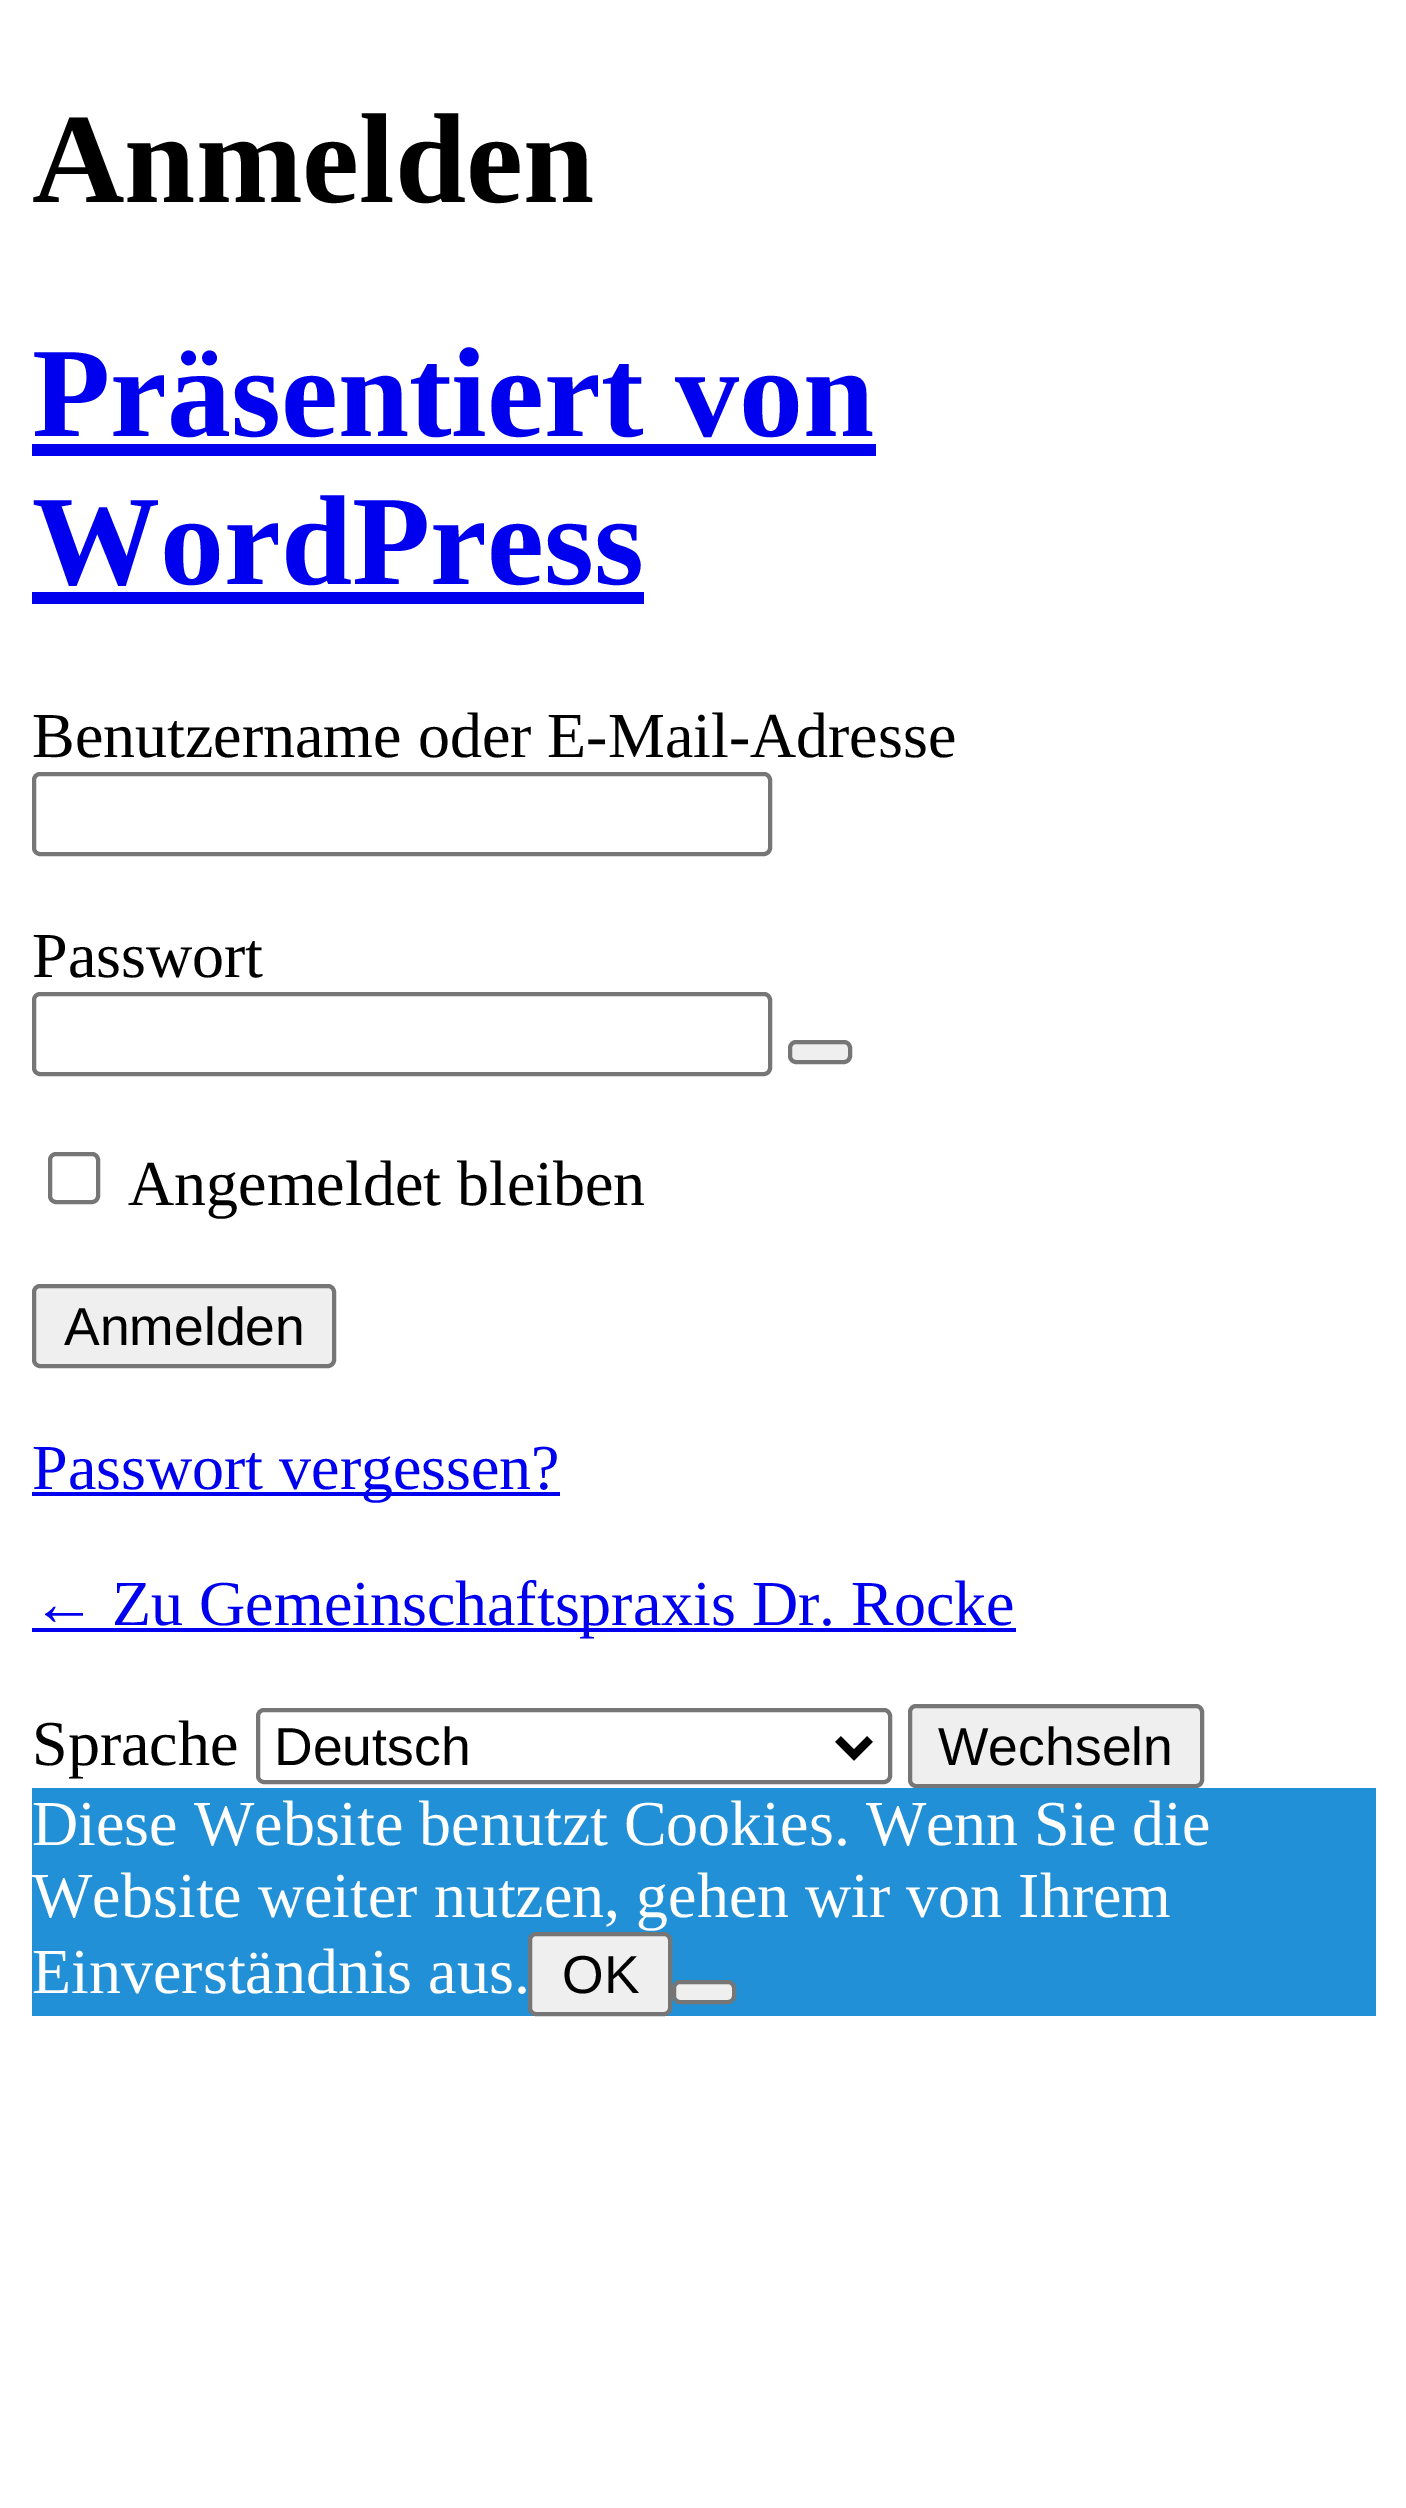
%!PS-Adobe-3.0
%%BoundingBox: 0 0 1406 2508
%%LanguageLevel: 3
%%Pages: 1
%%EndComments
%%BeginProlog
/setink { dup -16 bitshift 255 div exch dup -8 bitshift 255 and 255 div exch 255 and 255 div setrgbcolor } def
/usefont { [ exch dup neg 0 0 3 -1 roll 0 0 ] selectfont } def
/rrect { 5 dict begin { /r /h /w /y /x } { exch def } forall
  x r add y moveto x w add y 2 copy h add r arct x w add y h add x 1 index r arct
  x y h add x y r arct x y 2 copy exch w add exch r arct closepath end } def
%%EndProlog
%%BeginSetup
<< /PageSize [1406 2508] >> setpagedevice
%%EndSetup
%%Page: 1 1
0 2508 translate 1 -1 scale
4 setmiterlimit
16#FFFFFF setink
0 0 1406 2508 rectfill
/LiberationSerif-Bold 128 usefont
16#000000 setink
32 202 moveto (Anmelden) show
16#0000EE setink
32 436 moveto (Präsentiert von) show
32 444 844 12 rectfill
32 584 moveto (WordPress) show
32 592 612 12 rectfill
/LiberationSerif-Regular 64 usefont
16#000000 setink
32 757 moveto (Benutzername oder E-Mail-Adresse) show
16#767676 setink
4 setlinewidth
34 774 736 80 6 rrect stroke
16#000000 setink
32 977 moveto (Passwort) show
16#767676 setink
34 994 736 80 6 rrect stroke
16#EFEFEF setink
790 1042 60 20 6 rrect gsave fill grestore
16#767676 setink
stroke
50 1154 48 48 6 rrect stroke
16#000000 setink
128 1205 moveto (Angemeldet bleiben) show
16#EFEFEF setink
34 1286 300 80 6 rrect gsave fill grestore
16#767676 setink
stroke
/LiberationSans-Regular 53.5 usefont
16#000000 setink
64 1345 moveto (Anmelden) show
16#0000EE setink
32 1492 528 4 rectfill
/LiberationSerif-Regular 64 usefont
32 1489 moveto (Passwort vergessen?) show
32 1628 984 4 rectfill
32 1625 moveto (← Zu Gemeinschaftspraxis Dr. Rocke) show
16#000000 setink
32 1765 moveto (Sprache) show
16#767676 setink
258 1710 632 72 6 rrect stroke
16#000000 setink
8 setlinewidth
838 1739 moveto 854 1755 lineto 870 1739 lineto stroke
/LiberationSans-Regular 53.5 usefont
274 1765 moveto (Deutsch) show
16#EFEFEF setink
910 1706 292 80 6 rrect gsave fill grestore
16#767676 setink
4 setlinewidth
stroke
16#000000 setink
938 1765 moveto (Wechseln) show
16#2190D7 setink
32 1788 1344 228 rectfill
/LiberationSerif-Regular 64 usefont
16#FFFFFF setink
[
    [(Diese Website benutzt Cookies. Wenn Sie die) 32 1845]
    [(Website weiter nutzen, gehen wir von Ihrem) 32 1917]
    [(Einverständnis aus.) 32 1993]
] { aload pop moveto show } forall
16#EFEFEF setink
530 1934 140 80 6 rrect gsave fill grestore
16#767676 setink
stroke
/LiberationSans-Regular 53.5 usefont
16#000000 setink
562 1993 moveto (OK) show
16#EFEFEF setink
674 1982 60 20 6 rrect gsave fill grestore
16#767676 setink
stroke
showpage
%%EOF
